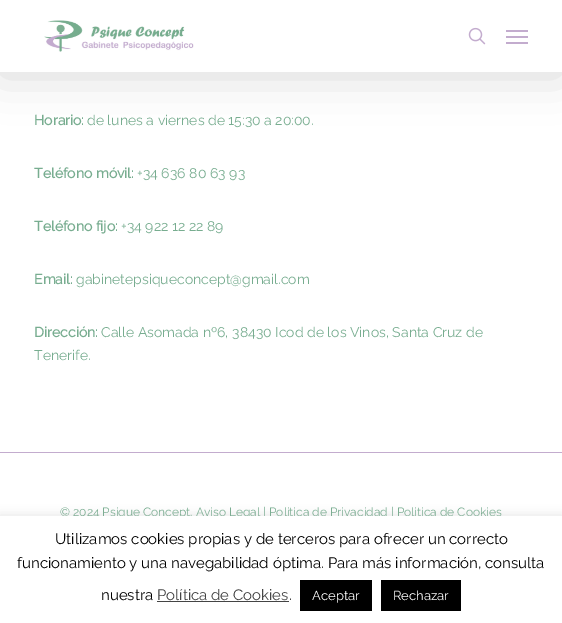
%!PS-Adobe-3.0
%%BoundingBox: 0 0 562 623
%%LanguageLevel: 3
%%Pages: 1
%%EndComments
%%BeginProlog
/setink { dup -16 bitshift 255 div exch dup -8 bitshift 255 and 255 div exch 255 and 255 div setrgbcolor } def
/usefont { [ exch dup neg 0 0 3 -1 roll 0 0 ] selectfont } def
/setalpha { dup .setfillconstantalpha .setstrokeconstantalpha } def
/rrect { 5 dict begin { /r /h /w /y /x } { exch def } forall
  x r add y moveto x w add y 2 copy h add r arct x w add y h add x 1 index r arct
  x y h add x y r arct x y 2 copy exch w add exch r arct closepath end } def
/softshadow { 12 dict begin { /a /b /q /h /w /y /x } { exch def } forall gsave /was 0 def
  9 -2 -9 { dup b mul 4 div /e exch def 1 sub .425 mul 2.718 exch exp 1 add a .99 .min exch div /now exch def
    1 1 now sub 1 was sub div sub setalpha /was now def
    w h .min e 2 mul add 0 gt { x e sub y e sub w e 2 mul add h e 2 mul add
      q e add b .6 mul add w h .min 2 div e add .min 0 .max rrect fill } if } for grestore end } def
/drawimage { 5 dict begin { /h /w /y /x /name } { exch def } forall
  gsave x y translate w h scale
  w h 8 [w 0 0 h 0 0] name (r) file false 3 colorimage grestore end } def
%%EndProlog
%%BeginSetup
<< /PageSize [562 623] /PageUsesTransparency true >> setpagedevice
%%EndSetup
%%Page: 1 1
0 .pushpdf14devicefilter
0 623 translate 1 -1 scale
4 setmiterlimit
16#FFFFFF setink
0 0 562 623 rectfill
16#000000 setink
0 3 562 72 0 22.5 0.15 softshadow
16#FFFFFF setink
0 0 562 72 rectfill
(img1.raw) 44 20 150 32 drawimage
(img2.raw) 468 27 18 18 drawimage
[
    [506 30 22 2 16#C3ACCE]
    [506 42 22 2 16#C3ACCE]
    [506 36 22 2 16#C3ACCE]
] { aload pop setink rectfill } forall
/Raleway-Bold 14 usefont
16#78AD90 setink
34 125 moveto (Horario:) show
/Raleway-Thin 14 usefont
87 125 moveto (de lunes a viernes de 15:30 a 20:00.) show
/Raleway-Bold 14 usefont
34 178 moveto (Teléfono móvil:) show
/Raleway-Thin 14 usefont
137 178 moveto (+34 636 80 63 93) show
/Raleway-Bold 14 usefont
34 231 moveto (Teléfono fijo:) show
/Raleway-Thin 14 usefont
121 231 moveto (+34 922 12 22 89) show
/Raleway-Bold 14 usefont
34 284 moveto (Email:) show
/Raleway-Thin 14 usefont
76 284 moveto (gabinetepsiqueconcept@gmail.com) show
/Raleway-Bold 14 usefont
34 337 moveto (Dirección:) show
/Raleway-Thin 14 usefont
101 337 moveto (Calle Asomada nº6, 38430 Icod de los Vinos, Santa Cruz de) show
34 360 moveto (Tenerife.) show
16#C3ACCE setink
0 452 562 1 rectfill
/Raleway-Thin 12 usefont
16#78AD90 setink
60 516 moveto (© 2024 Psique Concept. Aviso Legal | Politica de Privacidad | Politica de Cookies) show
16#ACABAB setink
0 515 562 107 0 5 0.3 softshadow
16#FFFFFF setink
0 516 562 107 rectfill
/Raleway-Thin 15 usefont
16#000000 setink
[
    [(Utilizamos cookies propias y de terceros para ofrecer un correcto) 55 544]
    [(funcionamiento y una navegabilidad óptima. Para más información, consulta) 17 568]
    [(nuestra) 101 600]
] { aload pop moveto show } forall
16#444444 setink
157 600 moveto (Política de Cookies) show
157 601 132 1 rectfill
16#000000 setink
289 600 moveto (.) show
300 580 72 31 rectfill
/Raleway-Thin 13 usefont
16#FFFFFF setink
312 600 moveto (Aceptar) show
16#000000 setink
381 580 80 31 rectfill
16#FFFFFF setink
393 600 moveto (Rechazar) show
.poppdf14devicefilter showpage
%%EOF
